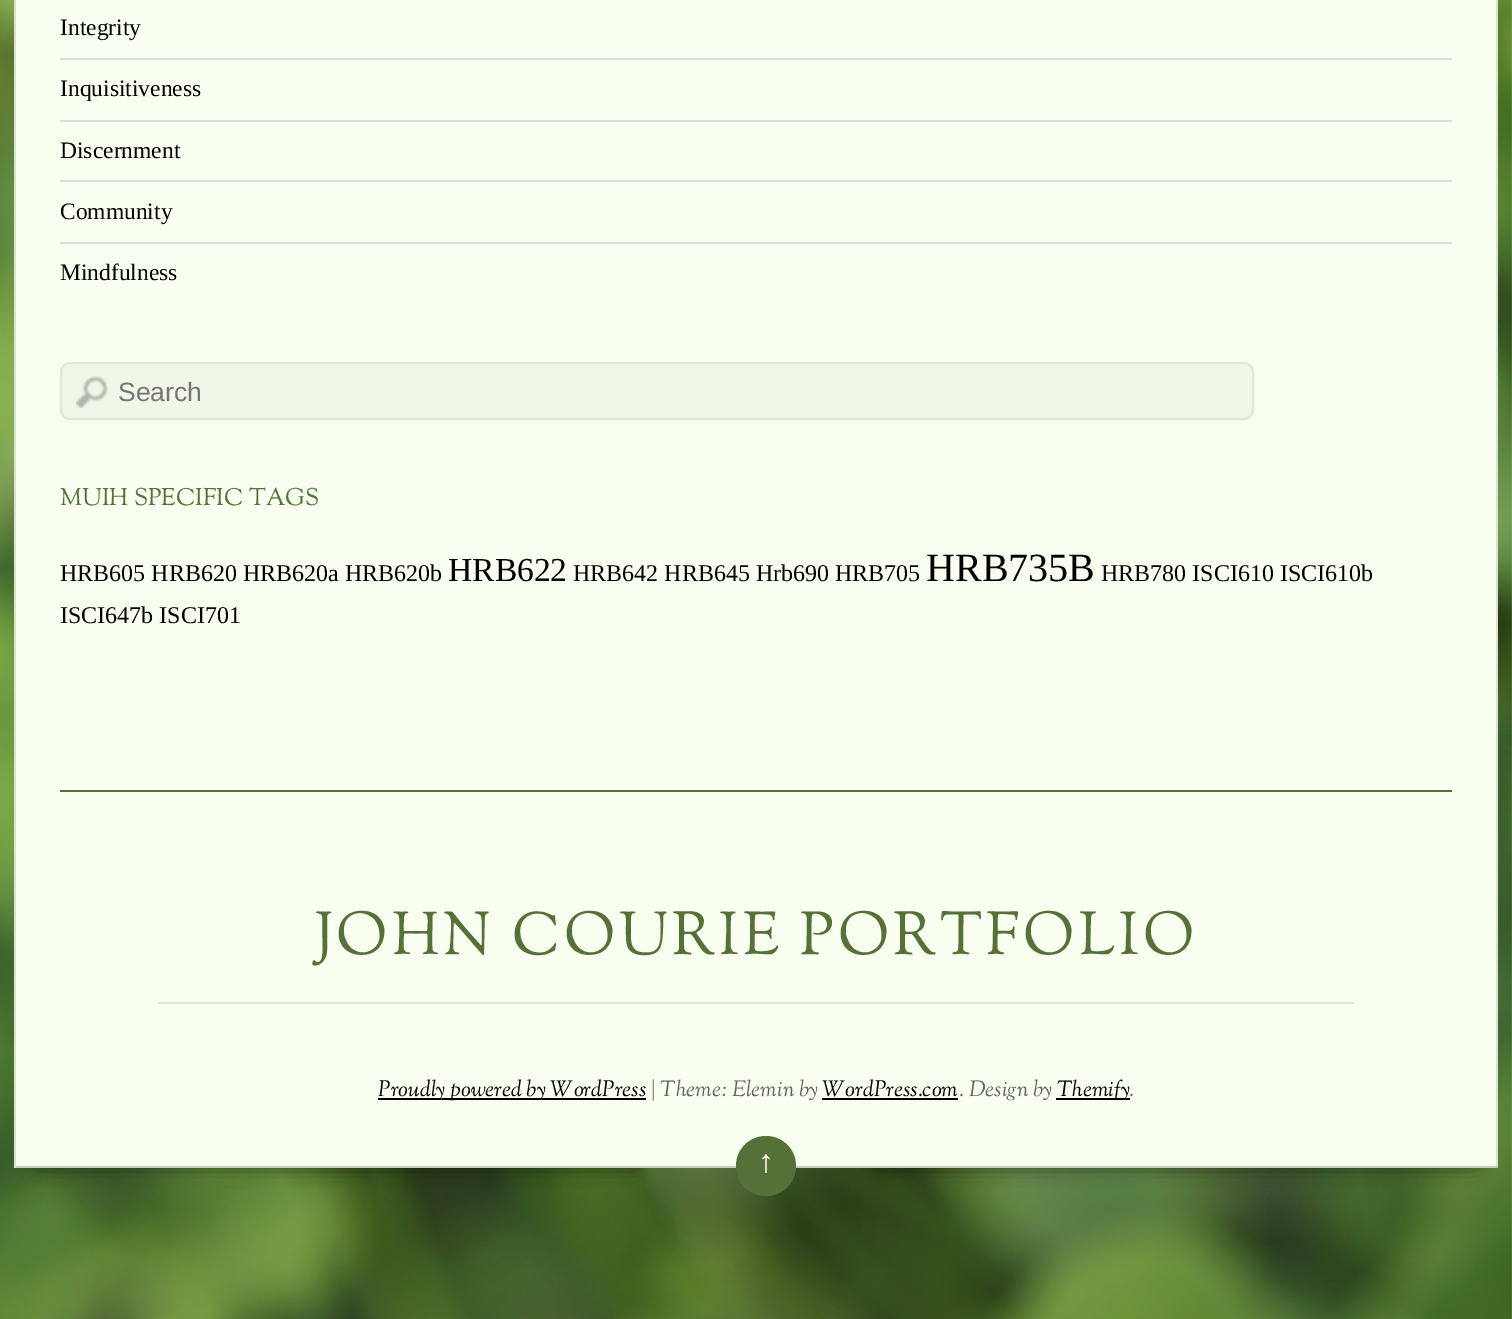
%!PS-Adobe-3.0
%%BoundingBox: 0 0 1512 1319
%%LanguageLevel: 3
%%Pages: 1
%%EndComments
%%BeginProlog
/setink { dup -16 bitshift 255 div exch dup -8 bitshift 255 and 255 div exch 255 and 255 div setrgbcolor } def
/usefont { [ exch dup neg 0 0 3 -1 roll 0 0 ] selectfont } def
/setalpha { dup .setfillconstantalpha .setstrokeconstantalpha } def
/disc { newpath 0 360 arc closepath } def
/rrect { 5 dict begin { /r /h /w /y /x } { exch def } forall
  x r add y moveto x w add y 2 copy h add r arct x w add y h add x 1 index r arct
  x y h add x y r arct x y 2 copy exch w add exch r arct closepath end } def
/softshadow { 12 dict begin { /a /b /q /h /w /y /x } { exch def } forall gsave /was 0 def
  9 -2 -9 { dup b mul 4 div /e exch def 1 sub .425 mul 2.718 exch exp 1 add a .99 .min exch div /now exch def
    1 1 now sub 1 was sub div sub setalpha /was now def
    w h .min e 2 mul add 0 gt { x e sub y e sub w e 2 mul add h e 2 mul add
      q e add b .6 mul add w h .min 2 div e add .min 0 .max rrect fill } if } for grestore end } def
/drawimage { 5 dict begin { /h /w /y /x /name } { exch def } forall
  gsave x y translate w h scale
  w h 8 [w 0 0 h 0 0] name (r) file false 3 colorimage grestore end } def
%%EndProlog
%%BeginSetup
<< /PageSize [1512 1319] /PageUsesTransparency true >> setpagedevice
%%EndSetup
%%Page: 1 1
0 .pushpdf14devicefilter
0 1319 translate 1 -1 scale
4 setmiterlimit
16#FFFFFF setink
0 0 1512 1319 rectfill
(img1.raw) 0 0 1512 1319 drawimage
16#000000 setink
36 1146 600 20 0 10 0.6 softshadow
876 1146 600 20 0 10 0.6 softshadow
[
    [16 0 1480 1166 16#F9FFF0]
    [1496 0 2 1168 16#DBE2D1]
    [14 1166 1484 2 16#C6CCBE]
    [14 0 2 1168 16#DBE2D1]
] { aload pop setink rectfill } forall
/LiberationSerif-Regular 23.5 usefont
16#000000 setink
60 35 moveto (Integrity) show
16#DDDDDD setink
60 58 1392 2 rectfill
16#000000 setink
60 96 moveto (Inquisitiveness) show
16#DDDDDD setink
60 120 1392 2 rectfill
16#000000 setink
60 158 moveto (Discernment) show
16#DDDDDD setink
60 180 1392 2 rectfill
16#000000 setink
60 219 moveto (Community) show
16#DDDDDD setink
60 242 1392 2 rectfill
16#000000 setink
60 280 moveto (Mindfulness) show
16#F1F7E8 setink
60 362 1194 58 10 rrect fill
(img2.raw) 76 376 32 32 drawimage
16#E1E6D8 setink
2 setlinewidth
61 363 1192 56 9 rrect stroke
/LiberationSans-Regular 26.5 usefont
16#757575 setink
118 401 moveto (Search) show
/SortsMillGoudy-Regular 24 usefont
16#567138 setink
60 505 moveto (MUIH SPECIFIC TAGS) show
/LiberationSerif-Regular 24 usefont
16#000000 setink
60 581 moveto (HRB605 HRB620 HRB620a HRB620b) show
/LiberationSerif-Regular 33.5 usefont
448 581 moveto (HRB622) show
/LiberationSerif-Regular 24 usefont
573 581 moveto (HRB642 HRB645 Hrb690 HRB705) show
/LiberationSerif-Regular 40 usefont
926 581 moveto (HRB735B) show
/LiberationSerif-Regular 24 usefont
1101 581 moveto (HRB780 ISCI610 ISCI610b) show
60 623 moveto (ISCI647b ISCI701) show
16#567138 setink
60 790 1392 2 rectfill
/SortsMillGoudy-Regular 60 usefont
315 954 moveto 4 0 (JOHN COURIE PORTFOLIO) ashow
16#E0E5D8 setink
158 1002 1196 2 rectfill
16#000000 setink
378 1098 268 2 rectfill
/SortsMillGoudy-Italic 22 usefont
378 1096 moveto (Proudly powered by WordPress) show
16#646660 setink
651 1096 moveto (| Theme: Elemin by) show
16#000000 setink
822 1096 moveto (WordPress.com) show
822 1098 136 2 rectfill
16#646660 setink
959 1096 moveto (. Design by) show
16#000000 setink
1056 1098 74 2 rectfill
1057 1096 moveto (Themify) show
16#646660 setink
1129 1096 moveto (.) show
16#567138 setink
766 1166 30 disc fill
/LiberationSerif-Regular 32 usefont
16#FFFFFF setink
758 1172 moveto (↑) show
.poppdf14devicefilter showpage
%%EOF
